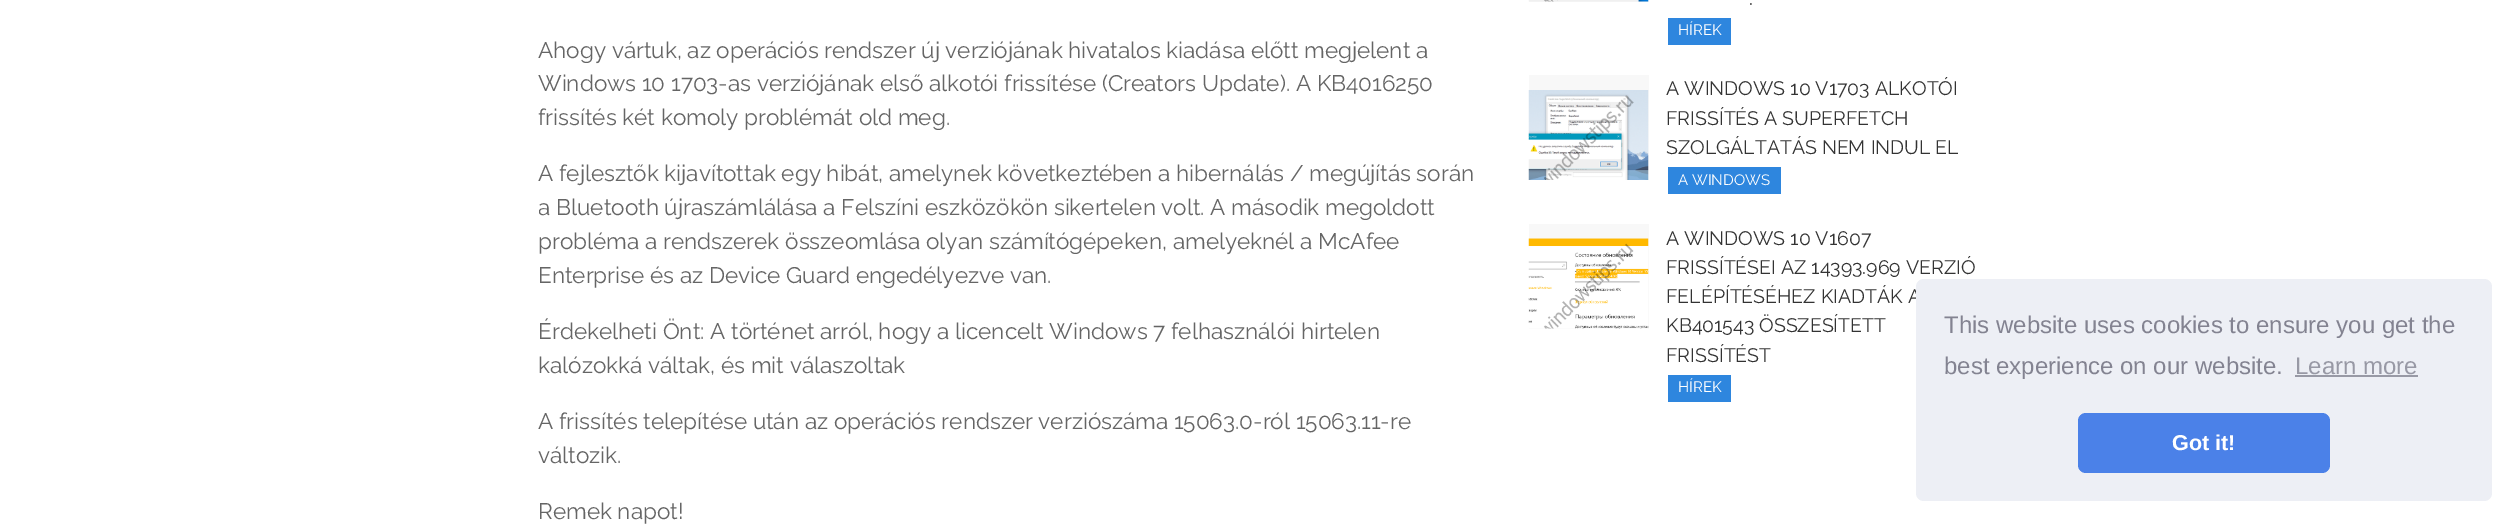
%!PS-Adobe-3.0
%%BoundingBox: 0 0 2515 525
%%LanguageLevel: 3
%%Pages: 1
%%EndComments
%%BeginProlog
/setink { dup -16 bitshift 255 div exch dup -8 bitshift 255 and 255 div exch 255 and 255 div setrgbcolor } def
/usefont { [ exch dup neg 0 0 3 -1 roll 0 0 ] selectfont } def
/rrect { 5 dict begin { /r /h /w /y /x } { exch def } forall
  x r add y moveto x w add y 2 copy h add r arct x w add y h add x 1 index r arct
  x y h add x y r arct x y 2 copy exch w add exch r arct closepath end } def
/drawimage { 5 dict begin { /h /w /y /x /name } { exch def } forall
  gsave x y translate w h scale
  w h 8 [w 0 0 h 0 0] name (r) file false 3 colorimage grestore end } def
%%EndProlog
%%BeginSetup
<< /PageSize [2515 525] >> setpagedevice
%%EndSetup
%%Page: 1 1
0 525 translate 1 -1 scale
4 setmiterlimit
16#FFFFFF setink
0 0 2515 525 rectfill
/Raleway-Thin 22.5 usefont
16#656565 setink
[
    [(Ahogy vártuk, az operációs rendszer új verziójának hivatalos kiadása előtt megjelent a) 538 58]
    [(Windows 10 1703-as verziójának első alkotói frissítése \(Creators Update\). A KB4016250) 538 91]
    [(frissítés két komoly problémát old meg.) 538 125]
    [(A fejlesztők kijavítottak egy hibát, amelynek következtében a hibernálás / megújítás során) 538 181]
] { aload pop moveto show } forall
gsave
539 0 945 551 rectclip
538 215 moveto (a Bluetooth újraszámlálása a Felszíni eszközökön sikertelen volt. A második megoldott) show
grestore
[
    [(probléma a rendszerek összeomlása olyan számítógépeken, amelyeknél a McAfee) 538 249]
    [(Enterprise és az Device Guard engedélyezve van.) 538 283]
    [(Érdekelheti Önt: A történet arról, hogy a licencelt Windows 7 felhasználói hirtelen) 538 339]
    [(kalózokká váltak, és mit válaszoltak) 538 373]
    [(A frissítés telepítése után az operációs rendszer verziószáma 15063.0-ról 15063.11-re) 538 429]
    [(változik.) 538 463]
    [(Remek napot!) 538 519]
] { aload pop moveto show } forall
16#F8F8F8 setink
1529 0 120 2 rectfill
(img1.raw) 1528 0 121 2 drawimage
/Raleway-Thin 19.5 usefont
16#333333 setink
1749 5 moveto (.) show
16#2E86DE setink
1668 18 63 27 rectfill
/Raleway-Thin 15 usefont
16#FFFFFF setink
1678 35 moveto (HÍREK) show
16#F8F8F8 setink
1529 75 120 105 rectfill
(img2.raw) 1528 90 121 90 drawimage
/Raleway-Thin 19.5 usefont
16#333333 setink
[
    [(A WINDOWS 10 V1703 ALKOTÓI) 1666 95]
    [(FRISSÍTÉS A SUPERFETCH) 1666 125]
    [(SZOLGÁLTATÁS NEM INDUL EL) 1666 154]
] { aload pop moveto show } forall
16#2E86DE setink
1668 167 113 27 rectfill
/Raleway-Thin 15 usefont
16#FFFFFF setink
1678 185 moveto (A WINDOWS) show
16#F8F8F8 setink
1529 224 120 105 rectfill
(img3.raw) 1528 238 121 91 drawimage
/Raleway-Thin 19.5 usefont
16#333333 setink
[
    [(A WINDOWS 10 V1607) 1666 245]
    [(FRISSÍTÉSEI AZ 14393.969 VERZIÓ) 1666 274]
    [(FELÉPÍTÉSÉHEZ KIADTÁK A) 1666 303]
    [(KB401543 ÖSSZESÍTETT) 1666 332]
    [(FRISSÍTÉST) 1666 362]
] { aload pop moveto show } forall
16#2E86DE setink
1668 375 63 27 rectfill
/Raleway-Thin 15 usefont
16#FFFFFF setink
1678 392 moveto (HÍREK) show
16#EDEFF5 setink
1916 279 576 222 8 rrect fill
/LiberationSans-Regular 24 usefont
16#838391 setink
1944 333 moveto (This website uses cookies to ensure you get the) show
1944 374 moveto (best experience on our website.) show
16#9899A5 setink
2295 374 moveto (Learn more) show
2295 375 123 2 rectfill
16#4B81E8 setink
2078 413 252 60 8 rrect fill
/LiberationSans-Bold 21.5 usefont
16#FFFFFF setink
2172 450 moveto (Got it!) show
showpage
%%EOF
